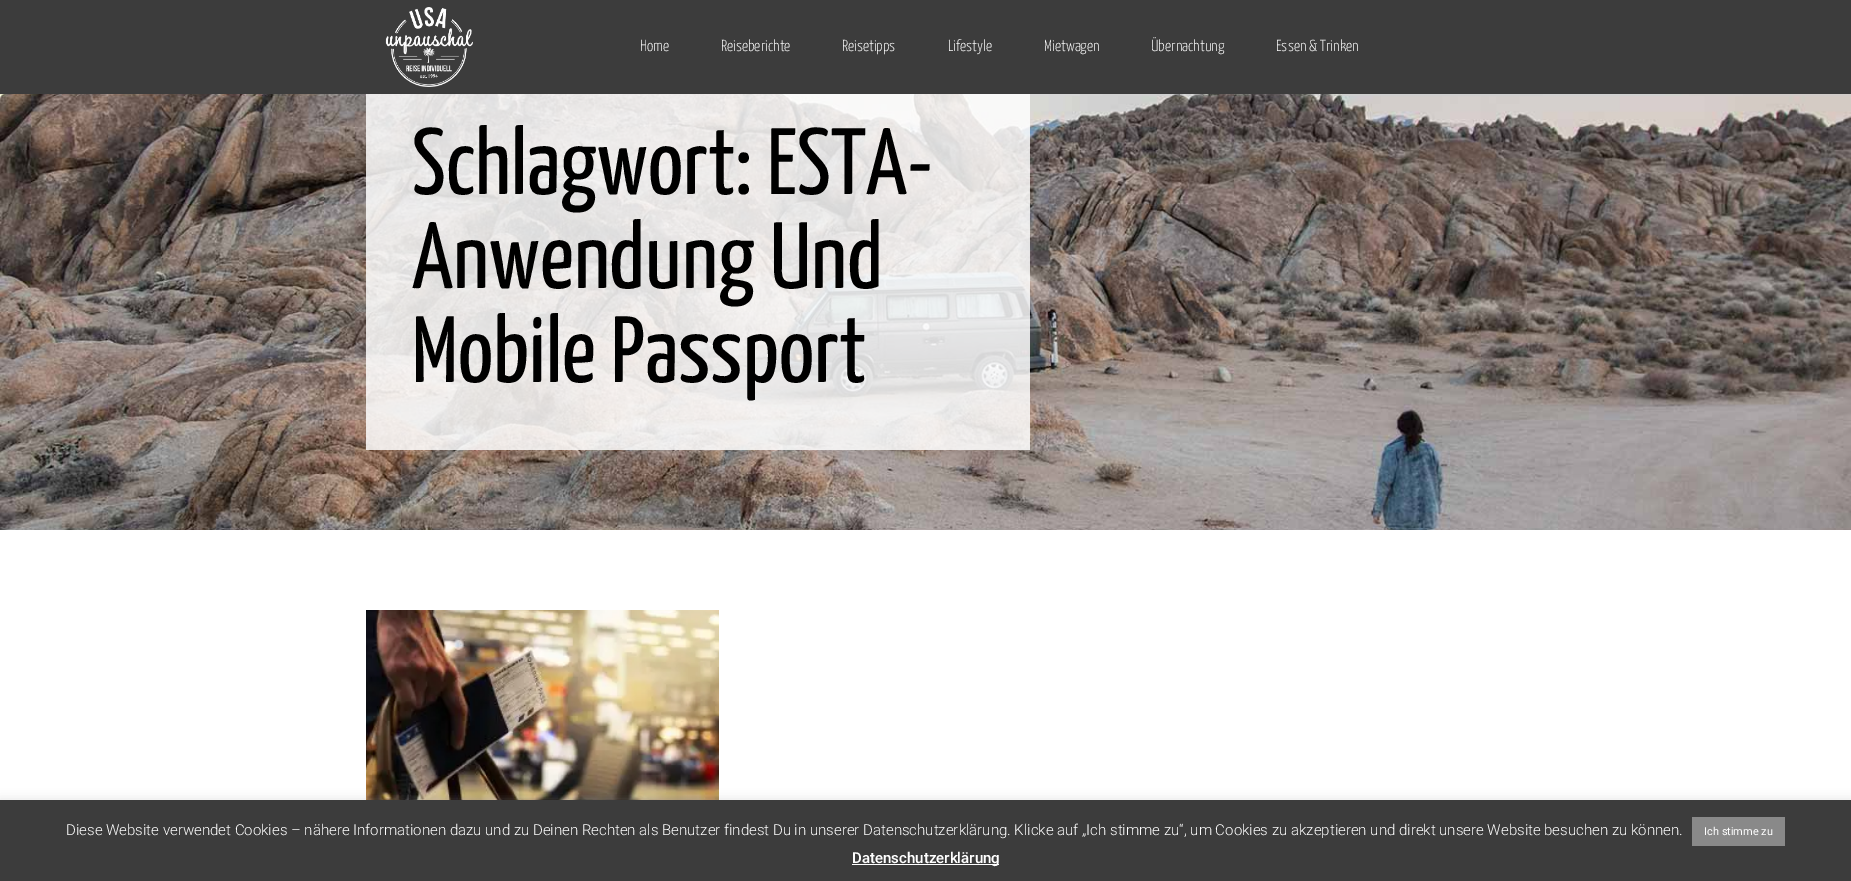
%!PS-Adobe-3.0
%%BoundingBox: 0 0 1851 881
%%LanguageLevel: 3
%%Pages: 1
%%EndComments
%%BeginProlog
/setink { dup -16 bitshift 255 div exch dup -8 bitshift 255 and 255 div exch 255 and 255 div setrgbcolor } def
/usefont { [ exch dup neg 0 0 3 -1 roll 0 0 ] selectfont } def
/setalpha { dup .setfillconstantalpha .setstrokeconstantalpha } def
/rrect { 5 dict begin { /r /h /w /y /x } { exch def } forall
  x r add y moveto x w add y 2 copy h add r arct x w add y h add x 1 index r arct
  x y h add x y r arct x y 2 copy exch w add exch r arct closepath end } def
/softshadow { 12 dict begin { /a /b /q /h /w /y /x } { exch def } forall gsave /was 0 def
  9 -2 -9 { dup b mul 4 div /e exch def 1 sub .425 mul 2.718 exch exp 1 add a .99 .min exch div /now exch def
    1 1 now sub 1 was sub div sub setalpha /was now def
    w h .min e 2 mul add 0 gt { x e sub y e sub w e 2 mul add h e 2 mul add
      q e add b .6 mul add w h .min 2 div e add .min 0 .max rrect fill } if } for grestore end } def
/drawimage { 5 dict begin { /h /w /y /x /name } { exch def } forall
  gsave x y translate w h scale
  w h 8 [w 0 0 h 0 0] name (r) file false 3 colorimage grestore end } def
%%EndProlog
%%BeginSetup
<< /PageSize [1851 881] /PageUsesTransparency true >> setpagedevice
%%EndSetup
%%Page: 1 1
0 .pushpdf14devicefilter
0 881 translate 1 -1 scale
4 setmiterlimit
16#FFFFFF setink
0 0 1851 881 rectfill
16#3C3C3C setink
0 0 1851 94 rectfill
(img1.raw) 385 7 88 80 drawimage
/YanoneKaffeesatz-Light 16 usefont
16#FFFFFF setink
[
    [(Home) 640 51]
    [(Reiseberichte) 721 51]
    [(Reisetipps) 842 51]
    [(Lifestyle) 948 51]
    [(Mietwagen) 1044 51]
    [(Übernachtung) 1151 51]
    [(Essen & Trinken) 1276 51]
] { aload pop moveto show } forall
(img2.raw) 0 94 1851 436 drawimage
0.84 setalpha
366 94 664 356 rectfill
/YanoneKaffeesatz-Regular 94 usefont
1 setalpha
16#000000 setink
[
    [(Schlagwort: ESTA-) 412 194]
    [(Anwendung Und) 412 288]
    [(Mobile Passport) 412 382]
] { aload pop moveto show } forall
(img3.raw) 366 610 353 190 drawimage
16#ACABAB setink
0 799 1851 81 0 5 0.3 softshadow
16#3C3C3C setink
0 800 1851 81 rectfill
/Roboto-Light 15 usefont
16#FFFFFF setink
66 835 moveto (Diese Website verwendet Cookies – nähere Informationen dazu und zu Deinen Rechten als Benutzer findest Du in unserer Datenschutzerklärung. Klicke auf „Ich stimme zu“, um Cookies zu akzeptieren und direkt unsere Website besuchen zu können.) show
16#898989 setink
1692 817 93 29 rectfill
/Roboto-Regular 11 usefont
16#FFFFFF setink
1704 835 moveto (Ich stimme zu) show
852 864 147 1 rectfill
/Roboto-Medium 15 usefont
852 863 moveto (Datenschutzerklärung) show
.poppdf14devicefilter showpage
%%EOF
